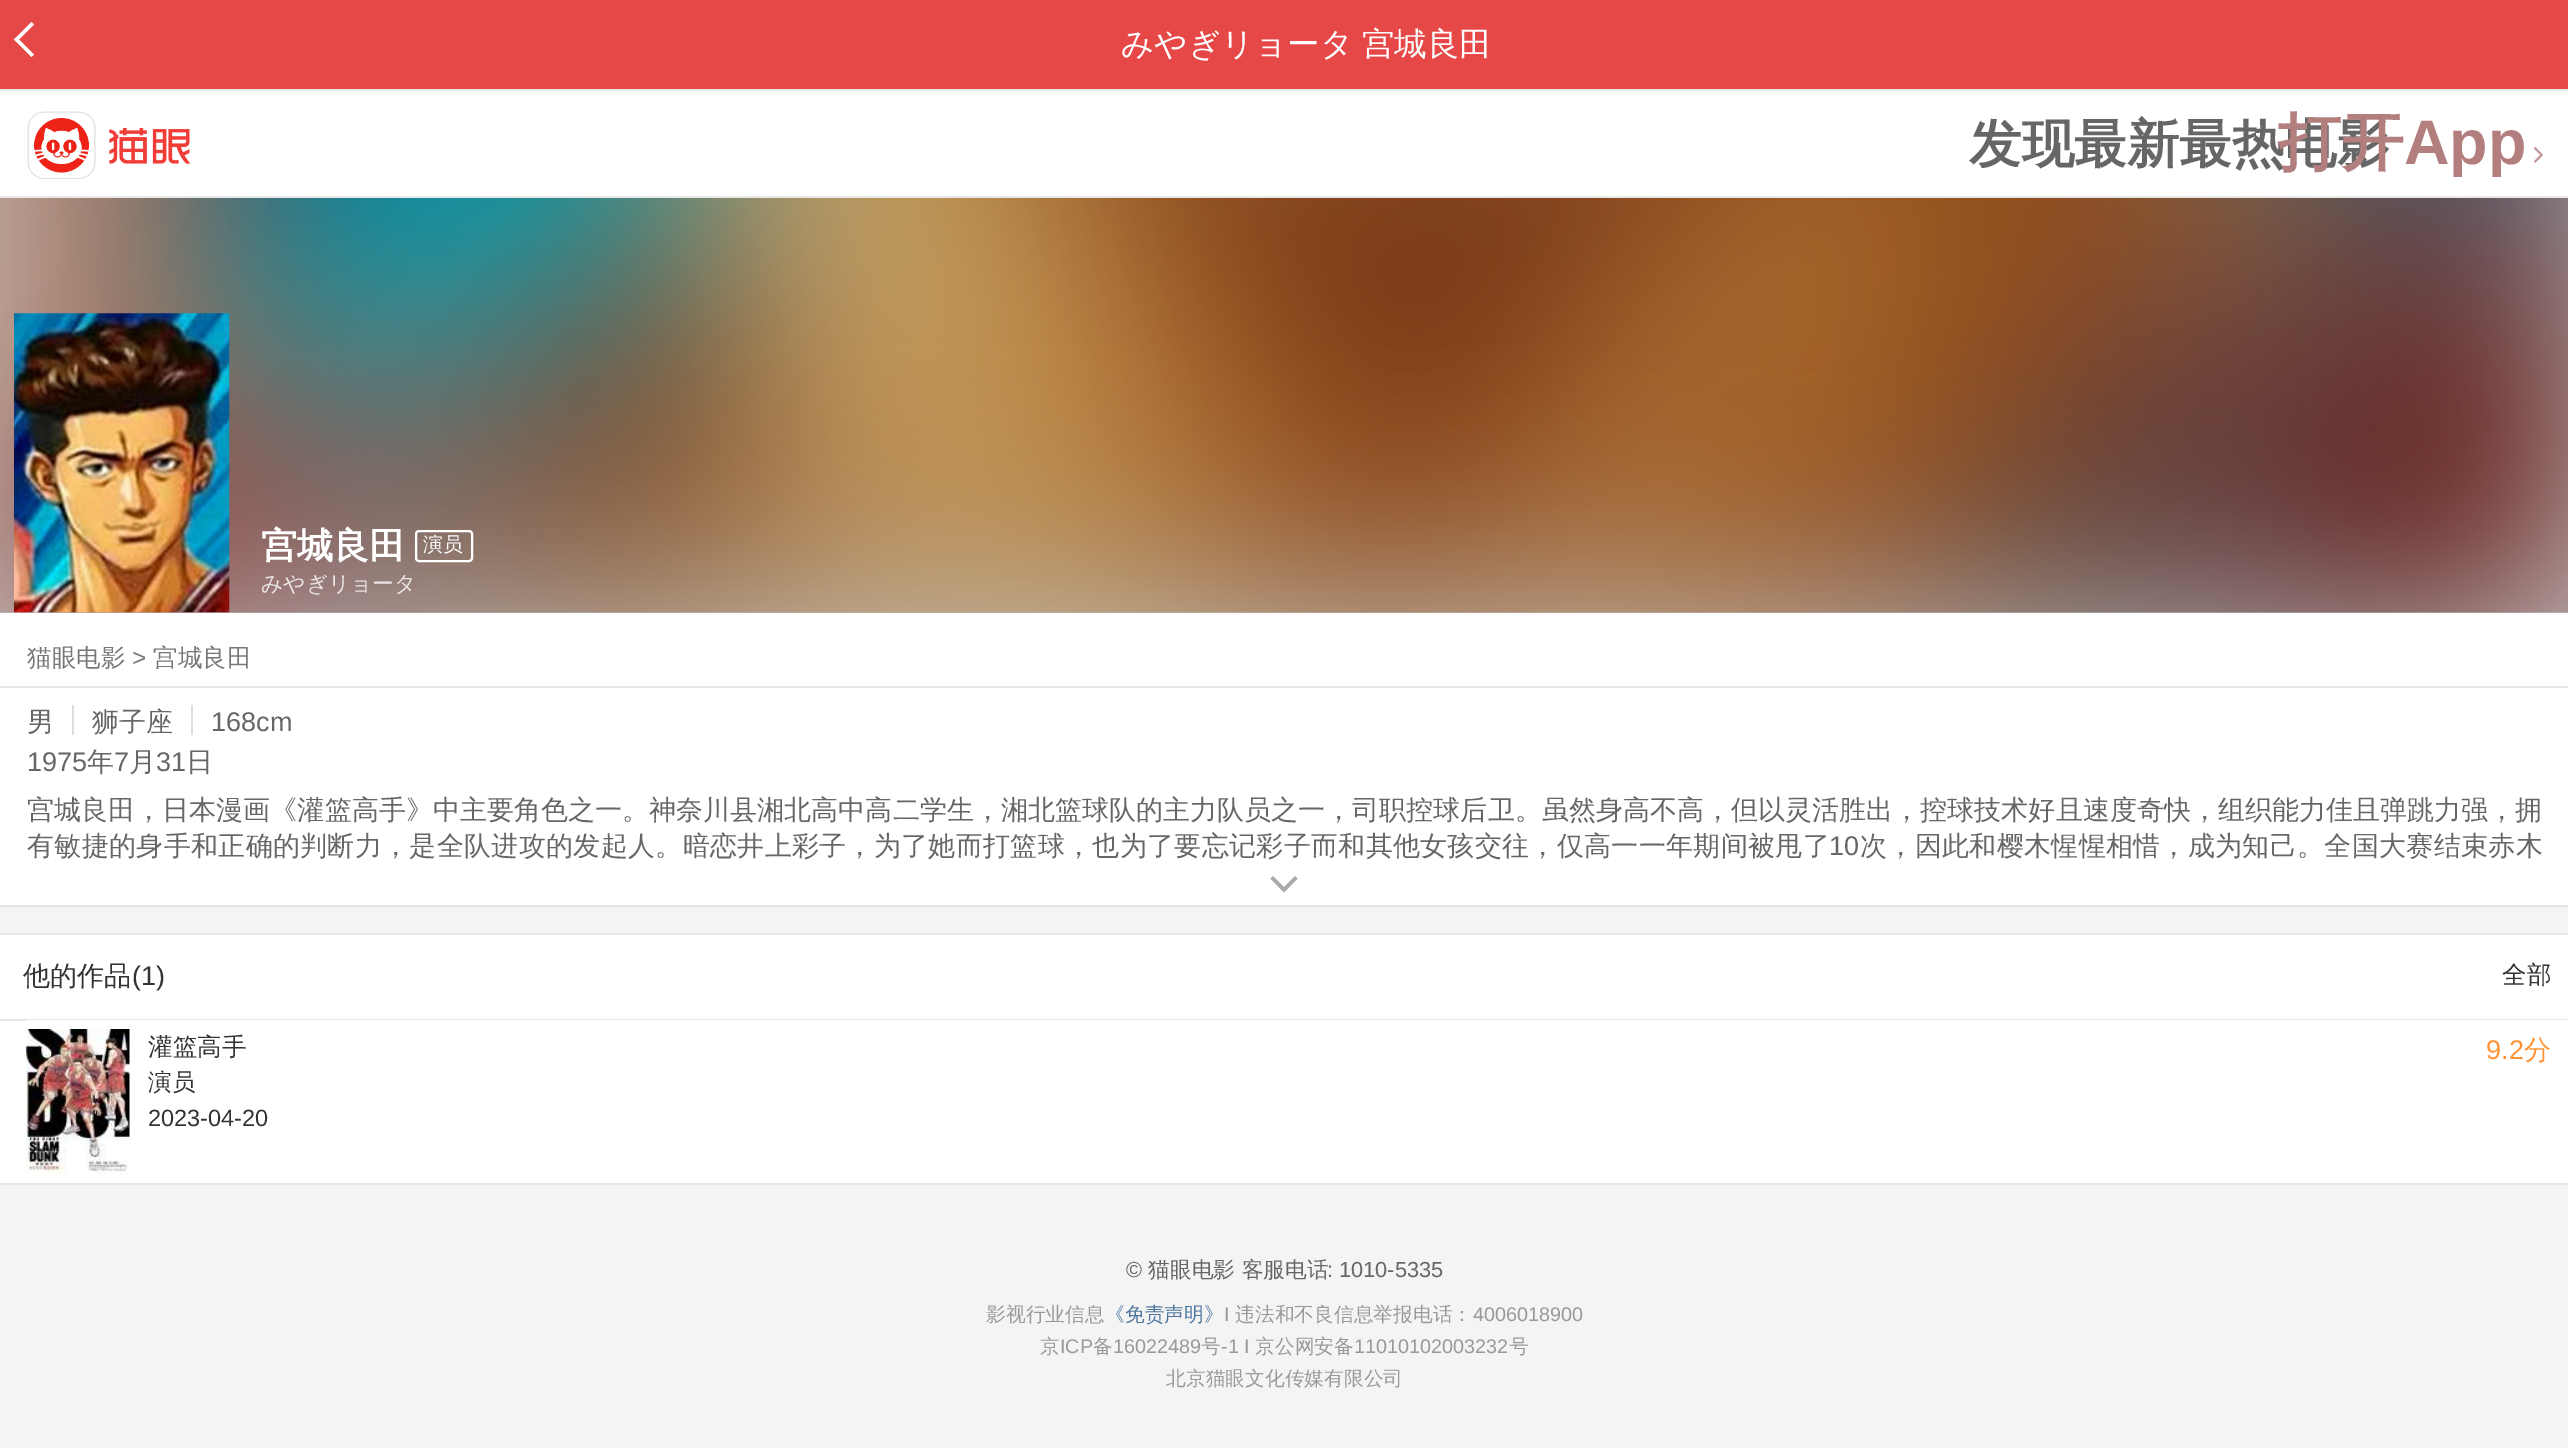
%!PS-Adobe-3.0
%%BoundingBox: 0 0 2568 1448
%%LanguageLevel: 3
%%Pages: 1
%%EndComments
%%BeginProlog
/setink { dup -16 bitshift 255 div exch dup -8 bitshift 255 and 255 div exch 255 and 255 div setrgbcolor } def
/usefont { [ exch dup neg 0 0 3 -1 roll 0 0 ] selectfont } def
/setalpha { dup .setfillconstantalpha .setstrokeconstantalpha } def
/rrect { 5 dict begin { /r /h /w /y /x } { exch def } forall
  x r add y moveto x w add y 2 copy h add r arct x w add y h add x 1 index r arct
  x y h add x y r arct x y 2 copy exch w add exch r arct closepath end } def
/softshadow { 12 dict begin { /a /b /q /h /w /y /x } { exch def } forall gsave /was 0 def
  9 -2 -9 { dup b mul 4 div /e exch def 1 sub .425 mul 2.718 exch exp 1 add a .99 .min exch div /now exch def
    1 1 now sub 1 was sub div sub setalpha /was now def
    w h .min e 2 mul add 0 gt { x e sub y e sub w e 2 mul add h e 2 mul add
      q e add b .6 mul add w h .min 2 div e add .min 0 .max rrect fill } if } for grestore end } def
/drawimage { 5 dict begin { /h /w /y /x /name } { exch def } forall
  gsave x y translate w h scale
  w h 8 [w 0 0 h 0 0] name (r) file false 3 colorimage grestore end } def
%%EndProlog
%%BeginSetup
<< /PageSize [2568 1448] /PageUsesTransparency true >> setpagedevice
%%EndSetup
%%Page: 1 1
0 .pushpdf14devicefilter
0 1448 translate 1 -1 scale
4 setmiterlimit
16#F4F4F4 setink
0 0 2568 1448 rectfill
[
    [0 0 2568 89 16#E54847]
    [0 613 2568 292 16#FFFFFF]
    [0 198 2568 415 16#CCCCCC]
    [0 905 2568 2 16#E5E5E5]
    [0 935 2568 248 16#FFFFFF]
    [0 933 2568 2 16#E6E6E6]
] { aload pop setink rectfill } forall
gsave
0 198 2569 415 rectclip
16#ADADAD setink
0 -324 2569 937 0 108 1 softshadow
grestore
16#FFFFFF setink
16.5 37 moveto 34 54.5 lineto 31.5 57 lineto 14 39.5 lineto closepath fill
31.5 22 moveto 34 24.5 lineto 16.5 42 lineto 14 39.5 lineto closepath fill
/WenQuanYiZenHei-Medium 32.5 usefont
1121 55 moveto -1 0 32 (みやぎリョータ 宫城良田) widthshow
[
    [0 91 2568 105 16#FFFFFF]
    [0 89 2568 2 16#E8E8E8]
    [0 196 2568 2 16#E8E8E8]
] { aload pop setink rectfill } forall
(img1.raw) 27 111 164 68 drawimage
/WenQuanYiZenHei-Bold 52.5 usefont
16#666666 setink
1969 162 moveto (发现最新最热电影) show
/WenQuanYiZenHei-Bold 63 usefont
16#B37E7E setink
2278 164 moveto (打开) show
/LiberationSans-Bold 63 usefont
2404 164 moveto (App) show
(img2.raw) 2534 147 9 16 drawimage
(img3.raw) 0 198 2568 415 drawimage
(img4.raw) 14 313 216 300 drawimage
/WenQuanYiZenHei-Bold 36 usefont
16#FFFFFF setink
261 558 moveto (宫城良田) show
2 setlinewidth
416 531 56 30 3 rrect stroke
/WenQuanYiZenHei-Medium 19.75 usefont
423 551 moveto (演员) show
/WenQuanYiZenHei-Medium 21.75 usefont
16#EAE5E4 setink
261 591 moveto (みやぎリョータ) show
/WenQuanYiZenHei-Medium 24.5 usefont
16#777777 setink
27 666 moveto (猫眼电影) show
/LiberationSans-Regular 24.5 usefont
132 666 moveto (>) show
/WenQuanYiZenHei-Medium 24.5 usefont
153 666 moveto (宫城良田) show
16#E6E6E6 setink
0 686 2568 2 rectfill
/WenQuanYiZenHei-Medium 27.05 usefont
16#666666 setink
27 731 moveto (男) show
92 731 moveto (狮子座) show
16#DDDDDD setink
72 705 2 30 rectfill
/LiberationSans-Regular 27.05 usefont
16#666666 setink
211 731 moveto (168cm) show
16#DDDDDD setink
191 705 2 30 rectfill
16#666666 setink
27 771 moveto (1975) show
/WenQuanYiZenHei-Medium 27.05 usefont
87 771 moveto (年) show
/LiberationSans-Regular 27.05 usefont
114 771 moveto (7) show
/WenQuanYiZenHei-Medium 27.05 usefont
129 771 moveto (月) show
/LiberationSans-Regular 27.05 usefont
156 771 moveto (31) show
/WenQuanYiZenHei-Medium 27.05 usefont
186 771 moveto (日) show
27 819 moveto (宫城良田，日本漫画《灌篮高手》中主要角色之一。神奈川县湘北高中高二学生，湘北篮球队的主力队员之一，司职控球后卫。虽然身高不高，但以灵活胜出，控球技术好且速度奇快，组织能力佳且弹跳力强，拥) show
27 855 moveto 0.27 0 (有敏捷的身手和正确的判断力，是全队进攻的发起人。暗恋井上彩子，为了她而打篮球，也为了要忘记彩子而和其他女孩交往，仅高一一年期间被甩了) ashow
/LiberationSans-Regular 27.05 usefont
1829 855 moveto 0.27 0 (10) ashow
/WenQuanYiZenHei-Medium 27.05 usefont
1860 855 moveto 0.27 0 (次，因此和樱木惺惺相惜，成为知己。全国大赛结束赤木) ashow
16#AAAAAA setink
1297.5 878.5 moveto 1295 876 lineto 1284 887 lineto 1273 876 lineto 1270.5 878.5 lineto 1284 892.5 lineto closepath fill
16#E6E6E6 setink
0 1183 2568 2 rectfill
0 1019 2568 2 rectfill
16#333333 setink
23 985 moveto (他的作品) show
/LiberationSans-Regular 27.05 usefont
132 985 moveto (\(1\)) show
/WenQuanYiZenHei-Medium 24.5 usefont
2502 983 moveto (全部) show
16#FFFFFF setink
26 1020 2542 1 rectfill
(img5.raw) 26 1029 104 145 drawimage
16#333333 setink
148 1055 moveto (灌篮高手) show
/LiberationSans-Regular 27.05 usefont
16#FF9334 setink
2486 1059 moveto (9.2) show
/WenQuanYiZenHei-Medium 27.05 usefont
2524 1059 moveto (分) show
/WenQuanYiZenHei-Medium 23.5 usefont
16#333333 setink
148 1090 moveto (演员) show
/LiberationSans-Regular 23.5 usefont
148 1126 moveto (2023-04-20) show
/LiberationSans-Regular 21.75 usefont
16#666666 setink
1126 1277 moveto (©) show
/WenQuanYiZenHei-Medium 21.75 usefont
1148 1277 moveto (猫眼电影 客服电话) show
/LiberationSans-Regular 21.75 usefont
1327 1277 moveto (:) show
1339 1277 moveto (1010-5335) show
/WenQuanYiZenHei-Medium 19.75 usefont
16#999999 setink
986 1321 moveto (影视行业信息) show
16#4E759E setink
1105 1321 moveto (《免责声明》) show
/LiberationSans-Regular 19.75 usefont
16#999999 setink
1224 1321 moveto (I) show
/WenQuanYiZenHei-Medium 19.75 usefont
1235 1321 moveto (违法和不良信息举报电话：) show
/LiberationSans-Regular 19.75 usefont
1473 1321 moveto (4006018900) show
/WenQuanYiZenHei-Medium 19.75 usefont
1040 1353 moveto (京) show
/LiberationSans-Regular 19.75 usefont
1060 1353 moveto (ICP) show
/WenQuanYiZenHei-Medium 19.75 usefont
1093 1353 moveto (备) show
/LiberationSans-Regular 19.75 usefont
1113 1353 moveto (16022489) show
/WenQuanYiZenHei-Medium 19.75 usefont
1201 1353 moveto (号) show
/LiberationSans-Regular 19.75 usefont
1221 1353 moveto (-1 I) show
/WenQuanYiZenHei-Medium 19.75 usefont
1255 1353 moveto (京公网安备) show
/LiberationSans-Regular 19.75 usefont
1354 1353 moveto (11010102003232) show
/WenQuanYiZenHei-Medium 19.75 usefont
1509 1353 moveto (号) show
1166 1385 moveto (北京猫眼文化传媒有限公司) show
.poppdf14devicefilter showpage
%%EOF
